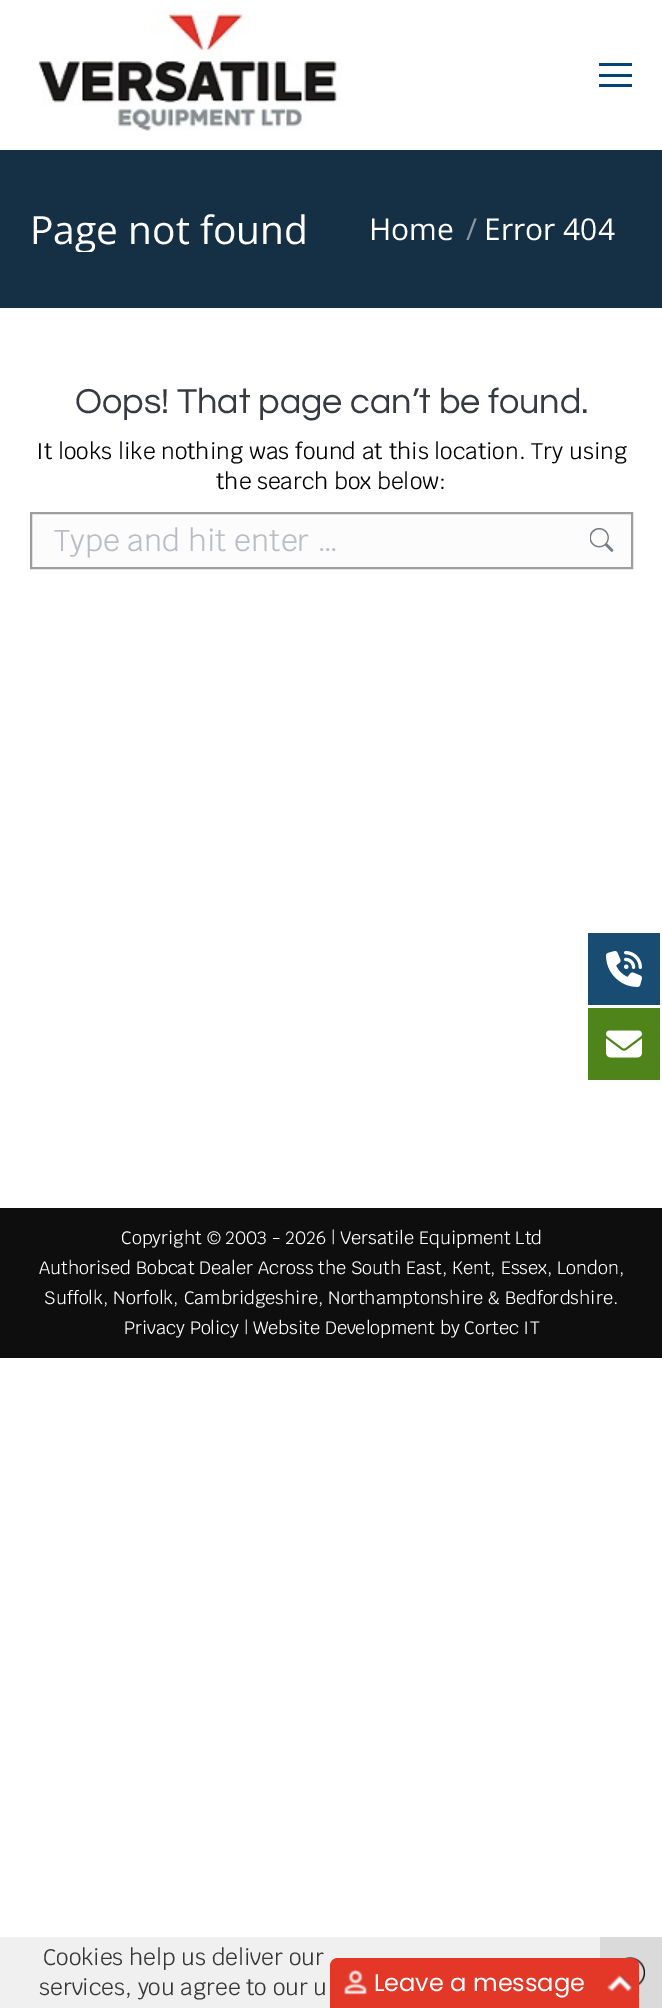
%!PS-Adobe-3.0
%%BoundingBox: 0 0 662 2008
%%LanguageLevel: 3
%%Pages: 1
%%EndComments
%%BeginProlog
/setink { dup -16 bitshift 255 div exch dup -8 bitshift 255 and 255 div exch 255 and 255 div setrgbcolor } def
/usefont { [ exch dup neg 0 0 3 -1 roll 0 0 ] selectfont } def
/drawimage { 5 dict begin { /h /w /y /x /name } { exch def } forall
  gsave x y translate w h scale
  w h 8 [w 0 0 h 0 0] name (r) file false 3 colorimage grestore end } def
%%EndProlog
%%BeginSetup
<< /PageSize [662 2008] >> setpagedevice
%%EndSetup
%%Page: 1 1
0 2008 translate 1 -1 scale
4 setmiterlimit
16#FFFFFF setink
0 0 662 2008 rectfill
(img1.raw) 38 10 304 121 drawimage
[
    [599 63 33 3 16#02457A]
    [599 74 33 3 16#02457A]
    [599 84 33 3 16#02457A]
    [0 150 662 158 16#152F44]
] { aload pop setink rectfill } forall
gsave
30 207 278 45 rectclip
/OpenSans-Regular 39 usefont
16#FFFFFF setink
30 244 moveto (Page not found) show
grestore
/OpenSans-Regular 30 usefont
16#FFFFFF setink
369 240 moveto (Home) show
16#8A97A2 setink
466 240 moveto (/) show
16#FFFFFF setink
484 240 moveto (Error 404) show
/Questrial-Regular 36 usefont
16#373A41 setink
75 413 moveto (Oops! That page can’t be found.) show
/Krub-Regular 22.5 usefont
16#000000 setink
36 459 moveto (It looks like nothing was found at this location. Try using) show
216 489 moveto (the search box below:) show
16#FCFCFC setink
31 513 moveto 632 513 lineto 632 568 lineto 31 568 lineto closepath gsave fill grestore
16#9E9E9E setink
2 setlinewidth
stroke
/Krub-Regular 30 usefont
16#BABDC1 setink
54 551 moveto (Type and hit enter …) show
(img2.raw) 590 528 24 24 drawimage
16#0E0E0E setink
0 1208 662 150 rectfill
/Krub-Regular 18 usefont
16#FFFFFF setink
[
    [(Copyright © 2003 - 2026 | Versatile Equipment Ltd) 121 1244]
    [(Authorised Bobcat Dealer Across the South East, Kent, Essex, London,) 39 1274]
    [(Suffolk, Norfolk, Cambridgeshire, Northamptonshire & Bedfordshire.) 44 1304]
    [(Privacy Policy | Website Development by Cortec IT) 124 1334]
] { aload pop moveto show } forall
16#184C72 setink
588 933 72 72 rectfill
(img3.raw) 606 951 36 36 drawimage
16#4F841A setink
588 1008 72 72 rectfill
(img4.raw) 606 1030 36 28 drawimage
16#F0F0F0 setink
0 1937 600 71 rectfill
/Krub-Regular 22.5 usefont
16#383535 setink
43 1965 moveto (Cookies help us deliver our) show
39 1995 moveto (services, you agree to our u) show
16#DADADA setink
600 1937 62 71 rectfill
(img5.raw) 625 1957 20 29 drawimage
16#E33728 setink
338 1958 moveto 631 1958 lineto 635.5 1958 639 1961.5 639 1966 curveto 639 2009 lineto 330 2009 lineto 330 1966 lineto 330 1961.5 333.5 1958 338 1958 curveto closepath fill
(img6.raw) 344 1970 23 25 drawimage
/Poppins-Regular 24 usefont
16#FFFFFF setink
374 1991 moveto (Leave a message) show
(img7.raw) 607 1974 25 18 drawimage
showpage
%%EOF
